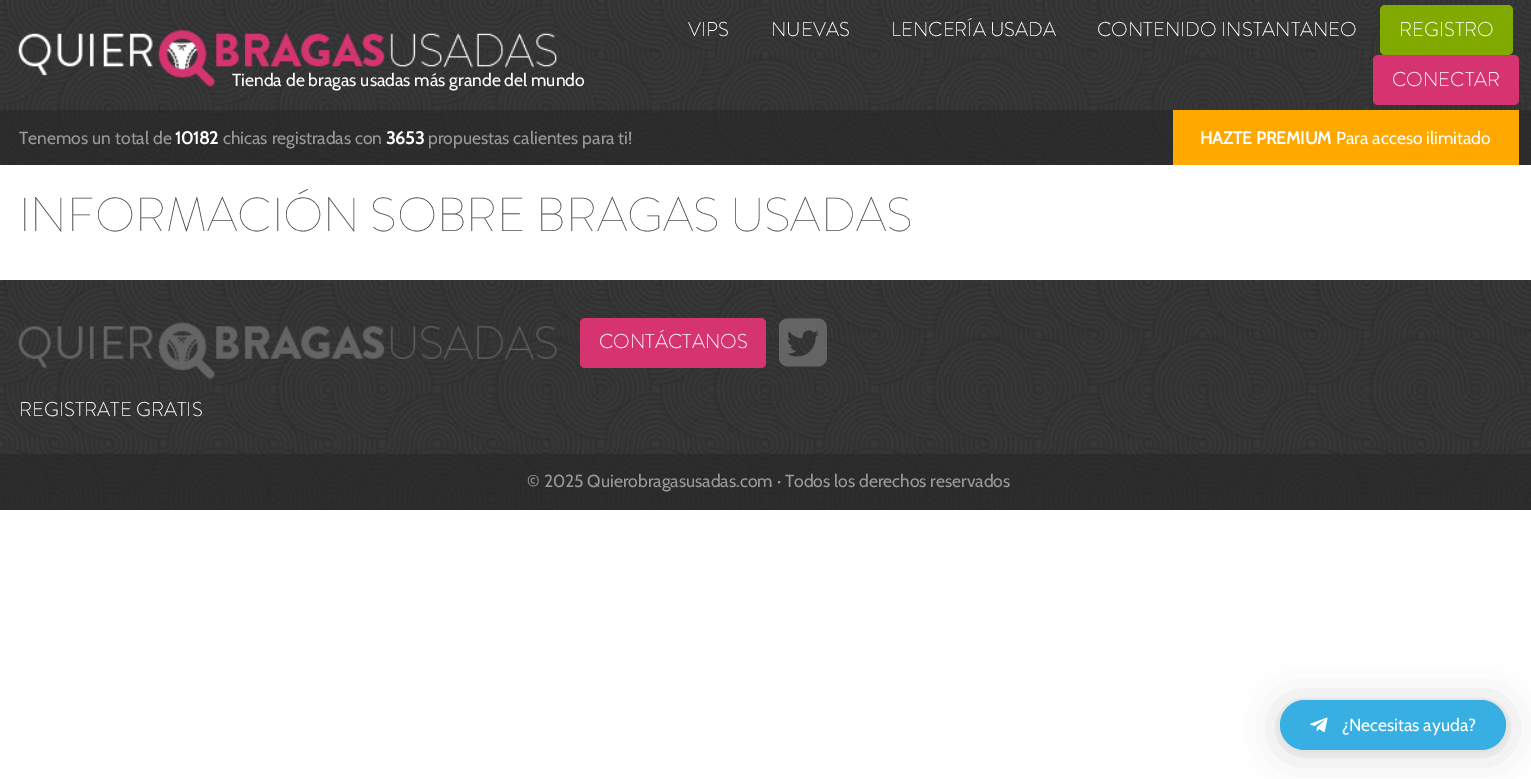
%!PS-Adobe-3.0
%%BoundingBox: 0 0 1531 779
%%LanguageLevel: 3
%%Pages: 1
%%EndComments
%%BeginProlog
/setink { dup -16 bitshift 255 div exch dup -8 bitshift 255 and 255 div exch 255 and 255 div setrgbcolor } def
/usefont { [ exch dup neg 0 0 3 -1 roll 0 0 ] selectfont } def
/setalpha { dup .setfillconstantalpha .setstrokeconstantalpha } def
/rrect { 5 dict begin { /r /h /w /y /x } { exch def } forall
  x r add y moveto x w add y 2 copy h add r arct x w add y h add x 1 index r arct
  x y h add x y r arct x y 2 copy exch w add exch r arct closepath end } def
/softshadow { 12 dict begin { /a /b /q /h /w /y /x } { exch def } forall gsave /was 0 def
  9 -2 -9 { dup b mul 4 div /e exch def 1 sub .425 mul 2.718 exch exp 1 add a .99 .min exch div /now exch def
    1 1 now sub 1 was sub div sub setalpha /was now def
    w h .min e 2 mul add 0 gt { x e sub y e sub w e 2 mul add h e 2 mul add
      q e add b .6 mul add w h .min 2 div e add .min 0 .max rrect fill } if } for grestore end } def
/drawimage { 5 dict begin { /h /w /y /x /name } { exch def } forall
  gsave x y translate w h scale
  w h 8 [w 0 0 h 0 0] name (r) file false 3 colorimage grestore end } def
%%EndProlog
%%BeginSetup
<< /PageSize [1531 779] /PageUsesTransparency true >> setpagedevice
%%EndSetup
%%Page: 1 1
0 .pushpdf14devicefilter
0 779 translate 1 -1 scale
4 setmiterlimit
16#FFFFFF setink
0 0 1531 779 rectfill
(img1.raw) 0 0 1531 165 drawimage
(img2.raw) 18 30 540 57 drawimage
/Cabin-Regular 17.5 usefont
232 86 moveto (Tienda de bragas usadas más grande del mundo) show
/BrandonGrotesque-Light 20 usefont
[
    [(VIPS) 688 36]
    [(NUEVAS) 771 36]
    [(LENCERÍA USADA) 891 36]
    [(CONTENIDO INSTANTANEO) 1097 36]
] { aload pop moveto show } forall
16#80AA00 setink
1380 5 133 50 5 rrect fill
16#FFFFFF setink
1399 36 moveto (REGISTRO) show
16#D63371 setink
1373 55 146 50 5 rrect fill
16#FFFFFF setink
1392 86 moveto (CONECTAR) show
0.53 setalpha
16#242424 setink
0 110 1531 55 rectfill
/Cabin-Regular 17.5 usefont
1 setalpha
16#999999 setink
19 144 moveto (Tenemos un total de) show
/Cabin-Bold 17.5 usefont
16#FFFFFF setink
175 144 moveto (10182) show
/Cabin-Regular 17.5 usefont
16#999999 setink
223 144 moveto (chicas registradas con) show
/Cabin-Bold 17.5 usefont
16#FFFFFF setink
386 144 moveto (3653) show
/Cabin-Regular 17.5 usefont
16#999999 setink
428 144 moveto (propuestas calientes para ti!) show
16#FFA800 setink
1173 110 346 55 rectfill
/Cabin-Bold 17.5 usefont
16#FFFFFF setink
1200 144 moveto (HAZTE PREMIUM) show
/Cabin-Regular 17.5 usefont
1336 144 moveto (Para acceso ilimitado) show
/BrandonGrotesque-Thin 47.5 usefont
16#4B494E setink
19 231 moveto (INFORMACIÓN SOBRE BRAGAS USADAS) show
(img3.raw) 0 280 1531 230 drawimage
(img4.raw) 18 322 539 57 drawimage
16#D63371 setink
580 318 186 50 5 rrect fill
/BrandonGrotesque-Light 20 usefont
16#FFFFFF setink
599 348 moveto (CONTÁCTANOS) show
(img5.raw) 779 318 48 49 drawimage
19 416 moveto (REGISTRATE GRATIS) show
0.53 setalpha
16#242424 setink
0 454 1531 56 rectfill
/Cabin-Regular 17.5 usefont
1 setalpha
16#999999 setink
527 487 moveto (© 2025 Quierobragasusadas.com · Todos los derechos reservados) show
16#000000 setink
1280 703 226 50 25 20 0.16 softshadow
1280 701 226 50 25 4 0.06 softshadow
16#37AFE2 setink
1280 700 226 50 25 rrect fill
(img6.raw) 1310 717 18 16 drawimage
16#FFFFFF setink
1342 731 moveto (¿Necesitas ayuda?) show
.poppdf14devicefilter showpage
%%EOF
